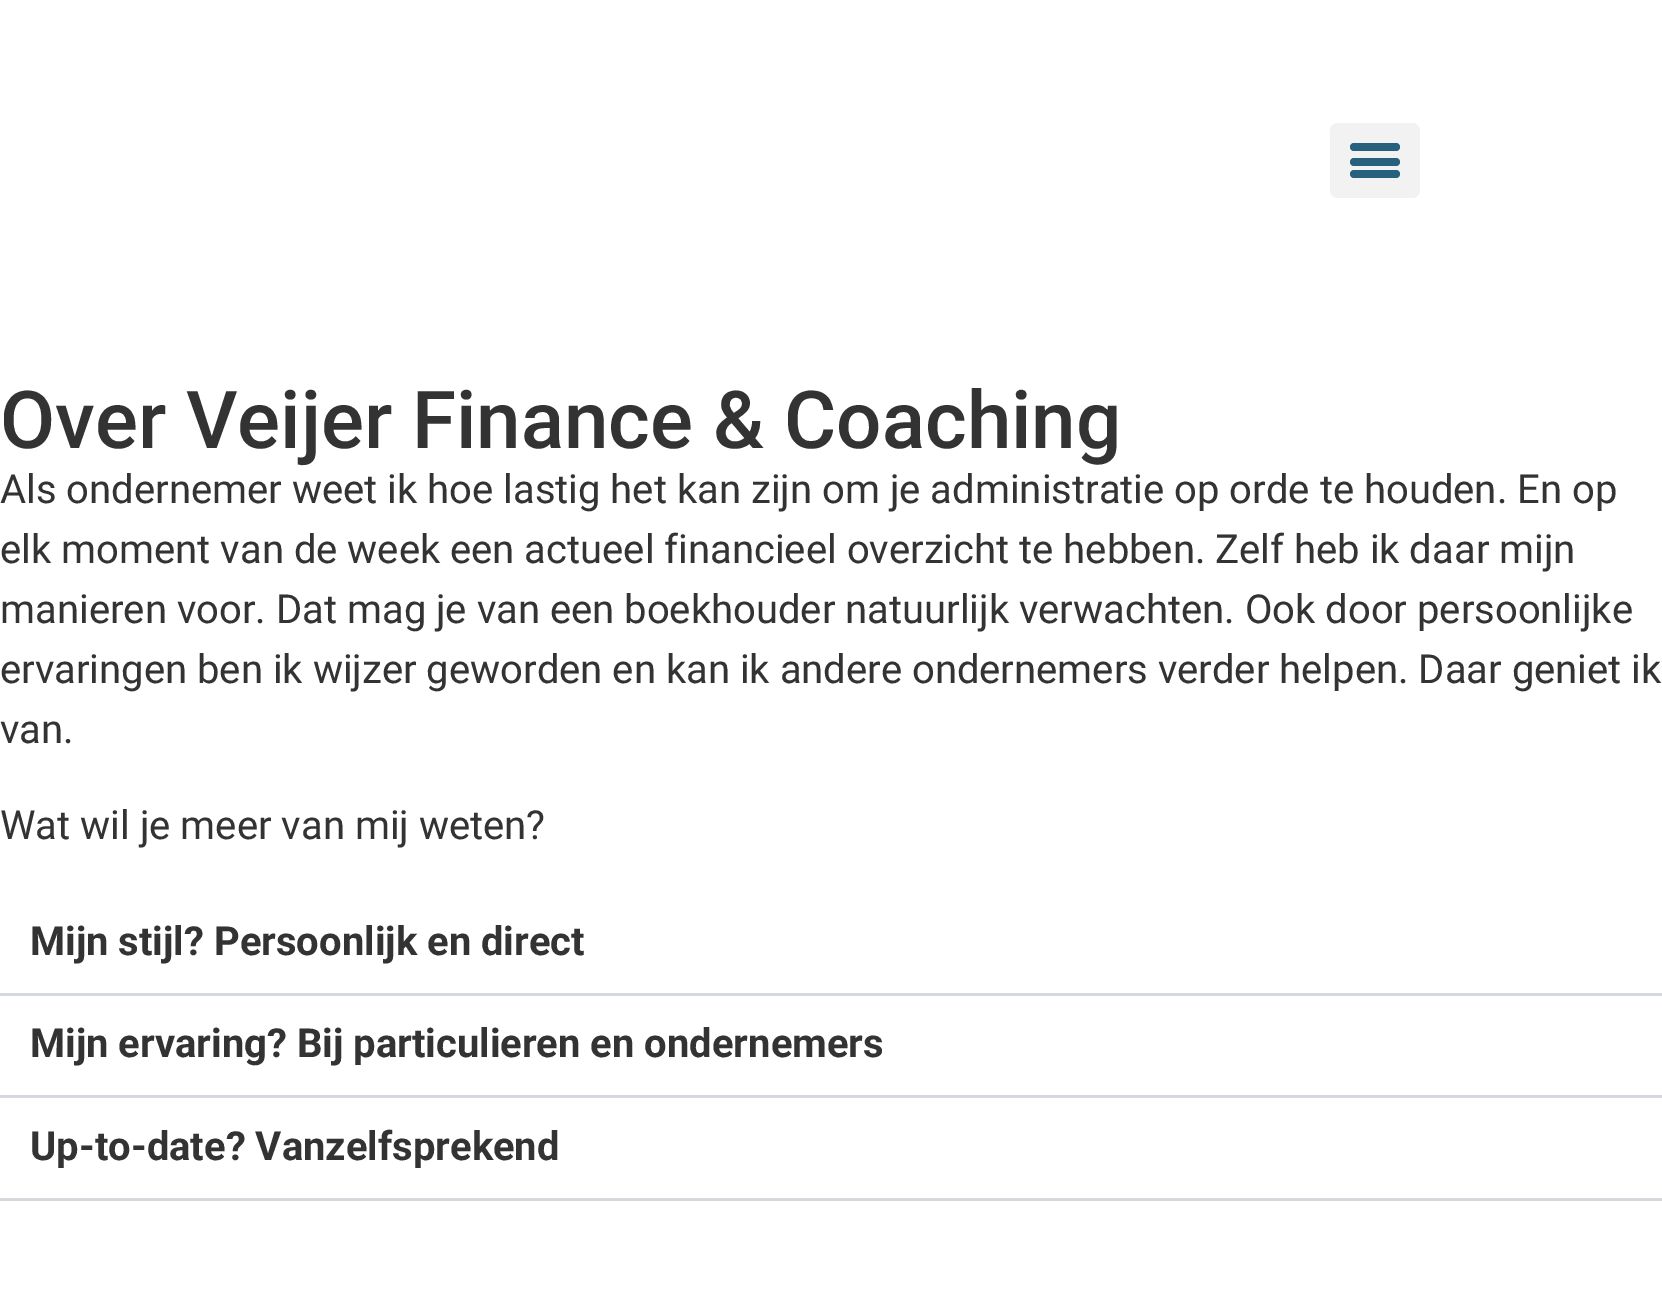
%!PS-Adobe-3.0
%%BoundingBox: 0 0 1662 1311
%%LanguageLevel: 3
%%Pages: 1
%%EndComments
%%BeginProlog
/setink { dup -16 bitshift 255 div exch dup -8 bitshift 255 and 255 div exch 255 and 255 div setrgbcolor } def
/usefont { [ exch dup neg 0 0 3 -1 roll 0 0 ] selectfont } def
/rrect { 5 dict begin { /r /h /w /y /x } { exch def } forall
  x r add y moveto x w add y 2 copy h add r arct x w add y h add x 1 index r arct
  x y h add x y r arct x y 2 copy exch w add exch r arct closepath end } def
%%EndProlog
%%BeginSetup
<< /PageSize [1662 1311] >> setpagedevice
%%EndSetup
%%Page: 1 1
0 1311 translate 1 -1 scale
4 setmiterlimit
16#FFFFFF setink
0 0 1662 1311 rectfill
16#F2F2F2 setink
1330 123 90 75 8 rrect fill
16#27617E setink
1350 158 50 8 4 rrect fill
1350 143 50 8 4 rrect fill
1350 170 50 8 4 rrect fill
/Roboto-Medium 80 usefont
16#333333 setink
0 448 moveto (Over Veijer Finance & Coaching) show
/Roboto-Regular 40 usefont
[
    [(Als ondernemer weet ik hoe lastig het kan zijn om je administratie op orde te houden. En op) 0 503]
    [(elk moment van de week een actueel financieel overzicht te hebben. Zelf heb ik daar mijn) 0 563]
    [(manieren voor. Dat mag je van een boekhouder natuurlijk verwachten. Ook door persoonlijke) 0 623]
    [(ervaringen ben ik wijzer geworden en kan ik andere ondernemers verder helpen. Daar geniet ik) 0 683]
    [(van.) 0 743]
    [(Wat wil je meer van mij weten?) 0 839]
] { aload pop moveto show } forall
16#D5D8DC setink
0 993 1662 3 rectfill
/Roboto-Bold 40 usefont
16#333333 setink
30 955 moveto (Mijn stijl? Persoonlijk en direct) show
16#D5D8DC setink
0 1095 1662 3 rectfill
16#333333 setink
30 1057 moveto (Mijn ervaring? Bij particulieren en ondernemers) show
16#D5D8DC setink
0 1198 1662 3 rectfill
16#333333 setink
30 1160 moveto (Up-to-date? Vanzelfsprekend) show
showpage
%%EOF
